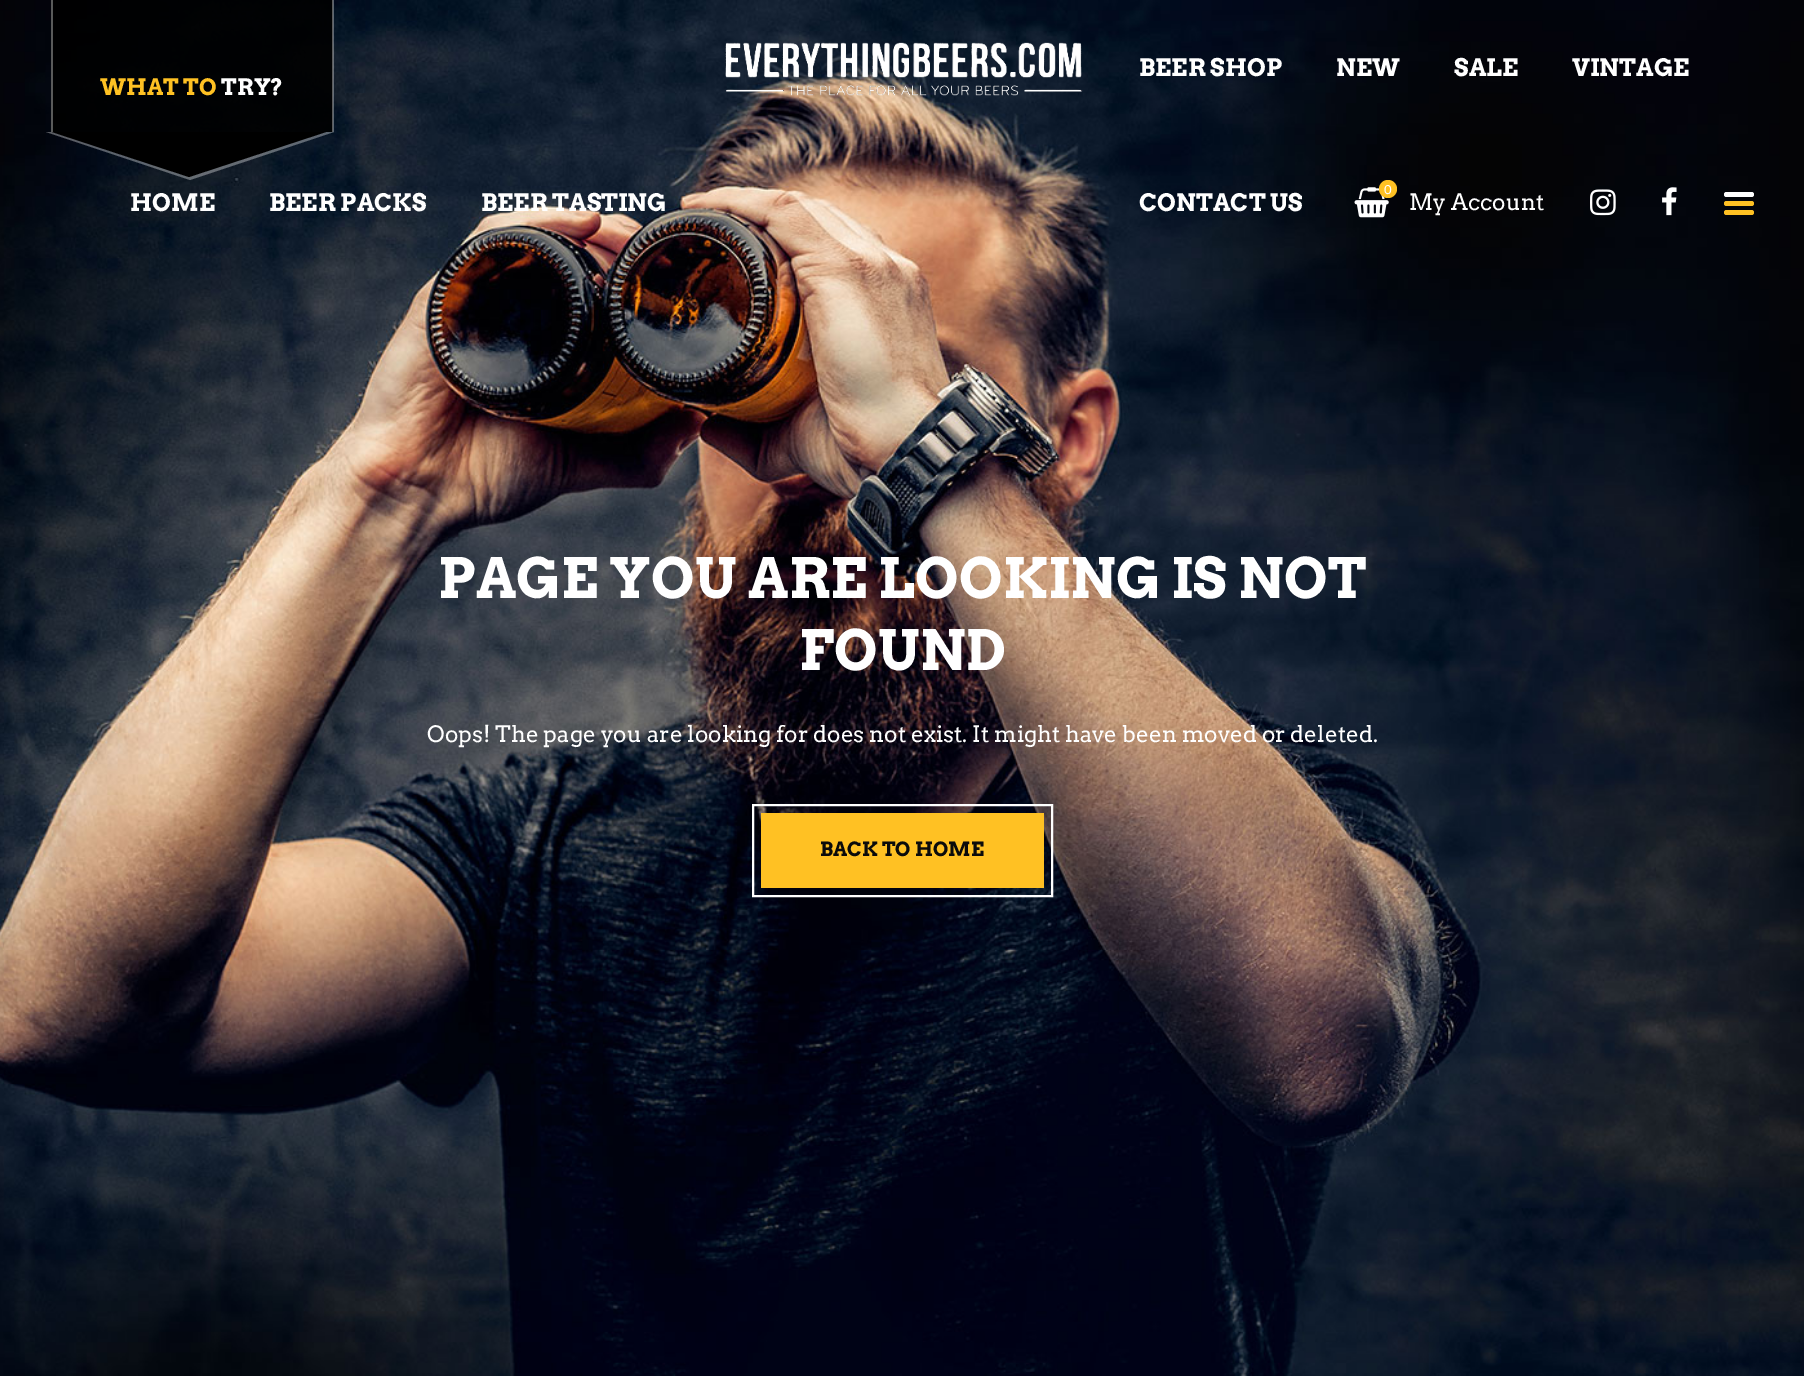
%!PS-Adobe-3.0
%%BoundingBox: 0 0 1804 1376
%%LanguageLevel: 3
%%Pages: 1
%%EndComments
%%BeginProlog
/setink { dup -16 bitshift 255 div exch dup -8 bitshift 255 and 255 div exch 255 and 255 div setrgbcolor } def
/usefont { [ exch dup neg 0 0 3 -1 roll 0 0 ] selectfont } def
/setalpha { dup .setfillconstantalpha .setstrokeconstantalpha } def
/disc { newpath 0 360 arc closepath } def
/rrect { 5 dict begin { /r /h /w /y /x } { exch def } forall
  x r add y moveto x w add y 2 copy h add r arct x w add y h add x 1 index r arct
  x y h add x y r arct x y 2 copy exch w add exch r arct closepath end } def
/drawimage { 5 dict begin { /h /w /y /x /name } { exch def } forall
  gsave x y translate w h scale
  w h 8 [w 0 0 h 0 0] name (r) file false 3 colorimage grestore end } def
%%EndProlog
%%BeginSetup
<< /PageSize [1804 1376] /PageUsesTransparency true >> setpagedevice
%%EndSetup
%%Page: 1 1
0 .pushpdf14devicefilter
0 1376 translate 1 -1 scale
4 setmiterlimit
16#FFFFFF setink
0 0 1804 1376 rectfill
(img5.raw) 0 0 1804 1376 drawimage
0.91 setalpha
[
    [53 0 280 132 16#000000]
] { aload pop setink rectfill } forall
0.35 setalpha
[
    [332 0 2 132 16#FFFFFF]
] { aload pop setink rectfill } forall
1 setalpha
[
    [51 0 2 132 16#595A5A]
] { aload pop setink rectfill } forall
/Arvo-Bold 22.5 usefont
16#FFC123 setink
100 95 moveto (WHAT TO) show
16#FFFFFF setink
221 95 moveto (TRY?) show
0.35 setalpha
46 132 moveto 334 132 lineto 190 180 lineto closepath fill
1 setalpha
16#000000 setink
52 132 moveto 326 132 lineto 189 177 lineto closepath fill
/Arvo-Bold 24 usefont
16#FFFFFF setink
[
    [(HOME) 130 211]
    [(BEER PACKS) 269 211]
    [(BEER TASTING) 481 211]
] { aload pop moveto show } forall
(img1.raw) 725 42 358 54 drawimage
[
    [(BEER SHOP) 1139 76]
    [(NEW) 1336 76]
    [(SALE) 1454 76]
    [(VINTAGE) 1572 76]
    [(CONTACT US) 1139 211]
] { aload pop moveto show } forall
(img2.raw) 1354 187 35 31 drawimage
16#FFC123 setink
1388 189 9 disc fill
/Arvo-Regular 12 usefont
16#FFFFFF setink
1384 194 moveto (0) show
/Arvo-Regular 22.5 usefont
1409 210 moveto (My Account) show
(img3.raw) 1590 189 26 27 drawimage
(img4.raw) 1662 187 15 29 drawimage
1724 192 30 5 2.5 rrect fill
16#FFC123 setink
1724 201 30 5 2.5 rrect fill
1724 210 30 5 2.5 rrect fill
/Arvo-Bold 55.5 usefont
16#FFFFFF setink
438 598 moveto (PAGE YOU ARE LOOKING IS NOT) show
799 670 moveto (FOUND) show
/Arvo-Regular 22.5 usefont
427 742 moveto (Oops! The page you are looking for does not exist. It might have been moved or deleted.) show
16#FFC123 setink
761 813 283 75 rectfill
16#FFFFFF setink
2 setlinewidth
753 805 299 91 rectstroke
/Arvo-Bold 19.5 usefont
16#0B0B0B setink
820 856 moveto (BACK TO HOME) show
.poppdf14devicefilter showpage
%%EOF
